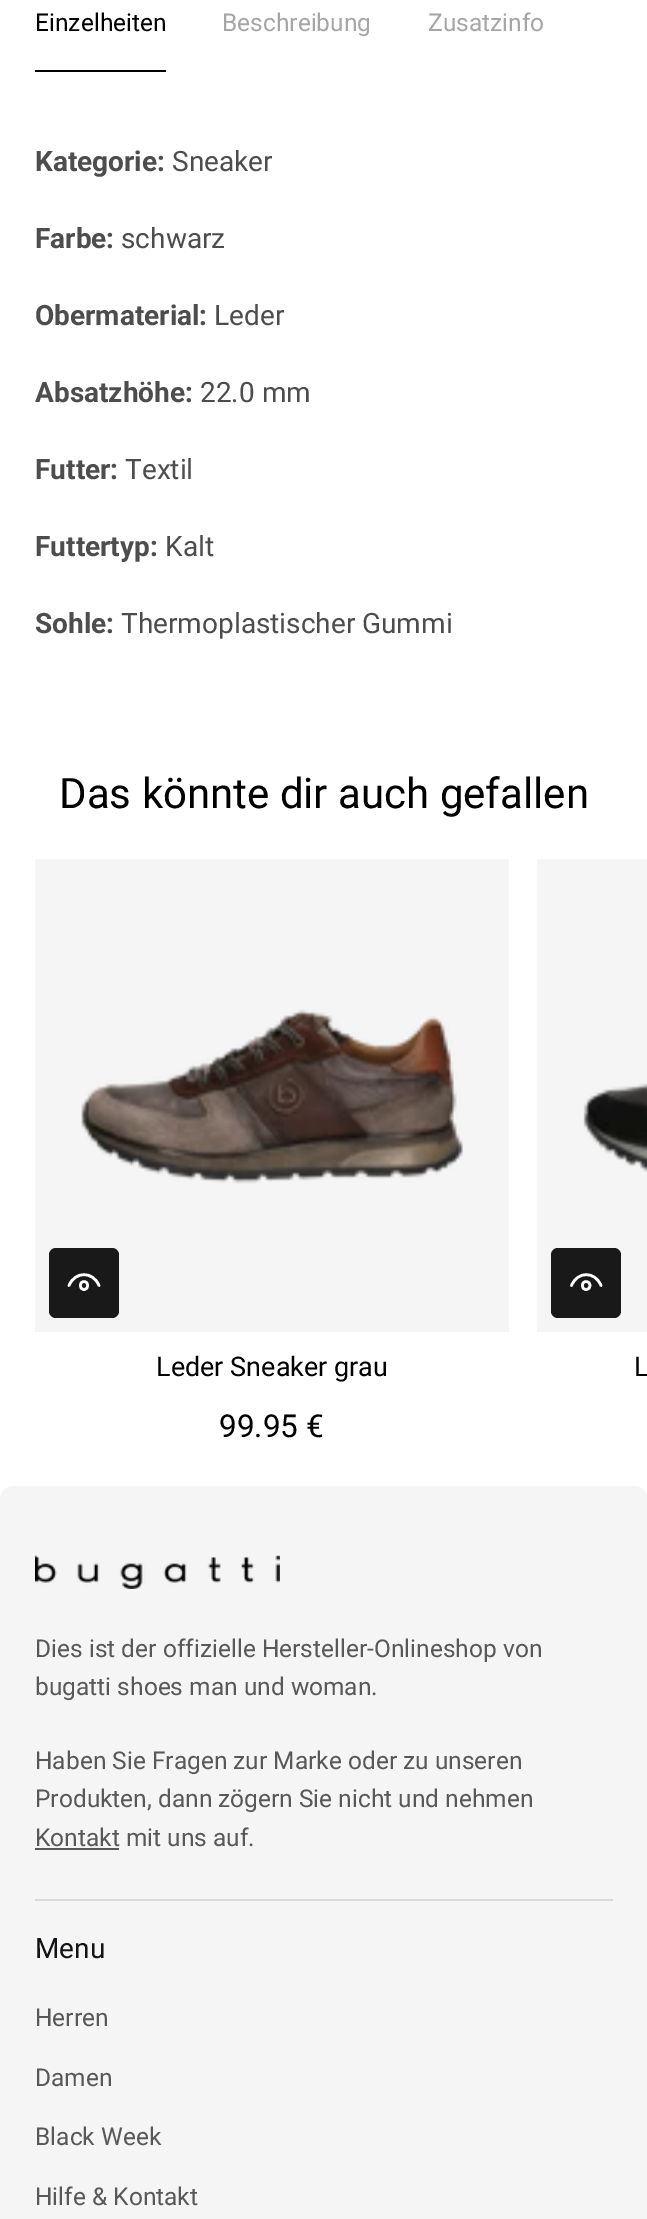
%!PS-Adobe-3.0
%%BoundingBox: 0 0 647 2219
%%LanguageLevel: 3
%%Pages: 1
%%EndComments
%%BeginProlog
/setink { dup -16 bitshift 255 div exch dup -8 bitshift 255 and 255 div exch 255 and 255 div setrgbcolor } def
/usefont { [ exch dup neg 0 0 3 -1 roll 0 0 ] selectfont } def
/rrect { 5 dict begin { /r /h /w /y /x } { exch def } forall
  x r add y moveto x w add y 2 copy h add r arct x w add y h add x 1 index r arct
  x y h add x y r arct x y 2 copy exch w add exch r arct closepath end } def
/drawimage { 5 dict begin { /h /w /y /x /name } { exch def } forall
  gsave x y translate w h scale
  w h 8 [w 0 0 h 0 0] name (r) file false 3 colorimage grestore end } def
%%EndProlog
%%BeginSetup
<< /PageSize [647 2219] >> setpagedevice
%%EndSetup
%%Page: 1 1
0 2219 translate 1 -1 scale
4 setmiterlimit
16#FFFFFF setink
0 0 647 2219 rectfill
16#000000 setink
35 70 131 2 rectfill
/Roboto-Regular 24.5 usefont
35 31 moveto (Einzelheiten) show
16#A6A6A6 setink
222 31 moveto (Beschreibung) show
428 31 moveto (Zusatzinfo) show
/Roboto-Bold 28 usefont
16#4D4D4D setink
35 171 moveto (Kategorie:) show
/Roboto-Regular 28 usefont
172 171 moveto (Sneaker) show
/Roboto-Bold 28 usefont
35 248 moveto (Farbe:) show
/Roboto-Regular 28 usefont
121 248 moveto (schwarz) show
/Roboto-Bold 28 usefont
35 325 moveto (Obermaterial:) show
/Roboto-Regular 28 usefont
214 325 moveto (Leder) show
/Roboto-Bold 28 usefont
35 402 moveto (Absatzhöhe:) show
/Roboto-Regular 28 usefont
200 402 moveto (22.0 mm) show
/Roboto-Bold 28 usefont
35 479 moveto (Futter:) show
/Roboto-Regular 28 usefont
125 479 moveto (Textil) show
/Roboto-Bold 28 usefont
35 556 moveto (Futtertyp:) show
/Roboto-Regular 28 usefont
165 556 moveto (Kalt) show
/Roboto-Bold 28 usefont
35 633 moveto (Sohle:) show
/Roboto-Regular 28 usefont
121 633 moveto (Thermoplastischer Gummi) show
/Roboto-Regular 42 usefont
16#000000 setink
59 808 moveto (Das könnte dir auch gefallen) show
16#F5F5F5 setink
35 859 474 473 rectfill
(img1.raw) 81 1009 382 175 drawimage
16#191919 setink
49 1248 70 70 7 rrect fill
16#FFFFFF setink
2.6 setlinewidth
1 setlinecap
1 setlinejoin
69 1285.5 moveto 75 1271 93 1271 99 1285.5 curveto 84 1289.5 moveto 79 1289.5 79 1281.5 84 1281.5 curveto 89 1281.5 89 1289.5 84 1289.5 curveto closepath stroke
/Roboto-Regular 27 usefont
16#000000 setink
156 1376 moveto (Leder Sneaker grau) show
/Roboto-Regular 31.5 usefont
219 1437 moveto (99.95 €) show
16#F5F5F5 setink
537 859 110 473 rectfill
(img2.raw) 583 1083 64 89 drawimage
16#191919 setink
551 1248 70 70 7 rrect fill
16#FFFFFF setink
571.5 1285.5 moveto 577.5 1271 595 1271 601 1285.5 curveto 586 1289.5 moveto 581 1289.5 581 1281.5 586 1281.5 curveto 591.5 1281.5 591.5 1289.5 586 1289.5 curveto closepath stroke
/Roboto-Regular 27 usefont
16#000000 setink
634 1376 moveto (L) show
16#F5F5F5 setink
0 1486 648 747 14 rrect fill
(img3.raw) 35 1555 245 34 drawimage
/Roboto-Regular 24.5 usefont
16#585859 setink
[
    [(Dies ist der offizielle Hersteller-Onlineshop von) 35 1657]
    [(bugatti shoes man und woman.) 35 1695]
    [(Haben Sie Fragen zur Marke oder zu unseren) 35 1769]
    [(Produkten, dann zögern Sie nicht und nehmen) 35 1807]
    [(Kontakt mit uns auf.) 35 1846]
] { aload pop moveto show } forall
35 1848 84 2 rectfill
16#D9D9D9 setink
35 1899 578 2 rectfill
/Roboto-Regular 28 usefont
16#141416 setink
35 1958 moveto (Menu) show
/Roboto-Regular 24.5 usefont
16#585859 setink
[
    [(Herren) 35 2026]
    [(Damen) 35 2086]
    [(Black Week) 35 2145]
    [(Hilfe & Kontakt) 35 2205]
] { aload pop moveto show } forall
showpage
%%EOF
